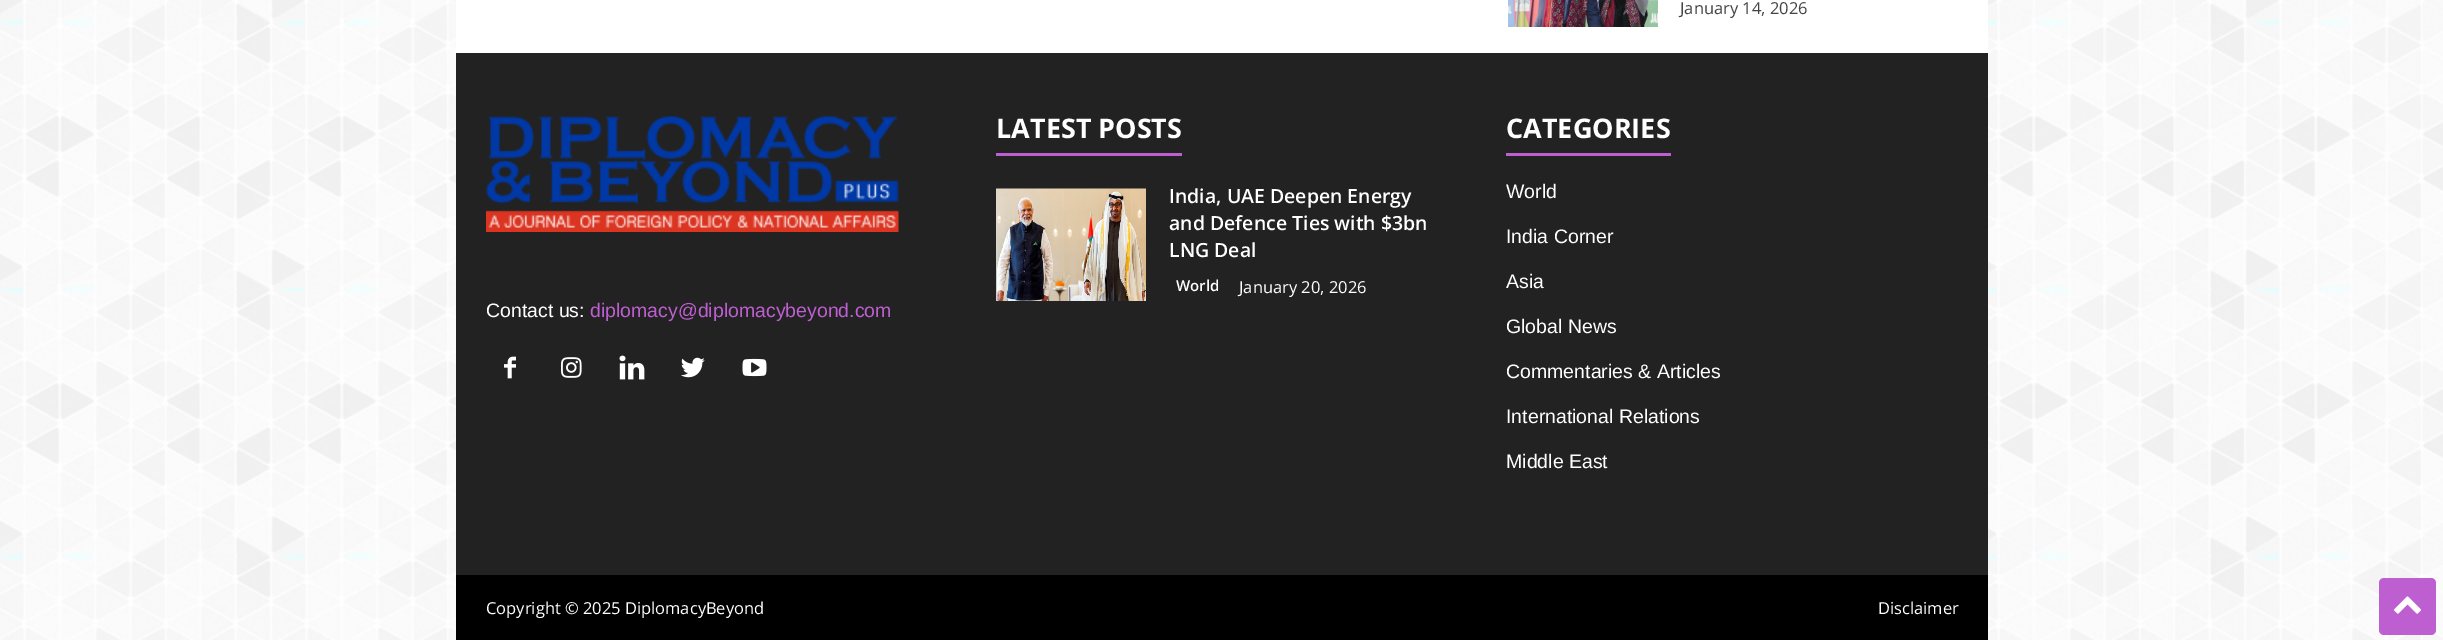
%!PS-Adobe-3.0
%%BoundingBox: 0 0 2443 640
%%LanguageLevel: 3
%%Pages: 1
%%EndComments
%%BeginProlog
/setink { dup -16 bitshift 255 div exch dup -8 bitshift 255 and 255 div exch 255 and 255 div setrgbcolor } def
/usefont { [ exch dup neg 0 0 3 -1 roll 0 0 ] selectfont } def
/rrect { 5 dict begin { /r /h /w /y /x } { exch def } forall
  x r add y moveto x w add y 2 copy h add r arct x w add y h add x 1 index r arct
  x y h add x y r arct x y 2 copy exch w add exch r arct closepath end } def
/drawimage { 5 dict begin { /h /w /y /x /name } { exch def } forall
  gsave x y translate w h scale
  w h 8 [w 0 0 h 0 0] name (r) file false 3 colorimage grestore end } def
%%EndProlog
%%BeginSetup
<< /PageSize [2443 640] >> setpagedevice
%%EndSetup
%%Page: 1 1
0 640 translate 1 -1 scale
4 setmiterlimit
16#FFFFFF setink
0 0 2443 640 rectfill
(img1.raw) 0 0 2443 640 drawimage
456 0 1532 53 rectfill
(img2.raw) 1508 0 150 27 drawimage
/OpenSans-Regular 16.5 usefont
16#444444 setink
1680 14 moveto (January 14, 2026) show
16#222222 setink
456 53 1532 522 rectfill
(img3.raw) 486 116 413 116 drawimage
/LiberationSans-Regular 19.5 usefont
16#FFFFFF setink
486 317 moveto (Contact us:) show
16#BD5ED1 setink
590 317 moveto (diplomacy@diplomacybeyond.com) show
(img4.raw) 504 356 12 23 drawimage
(img5.raw) 561 357 21 21 drawimage
(img6.raw) 619 355 26 25 drawimage
(img7.raw) 681 357 24 21 drawimage
(img8.raw) 742 358 25 19 drawimage
/OpenSans-Bold 27 usefont
16#FFFFFF setink
996 138 moveto (LATEST POSTS) show
16#BD5ED1 setink
996 153 186 3 rectfill
(img9.raw) 996 188 150 113 drawimage
/OpenSans-SemiBold 19.5 usefont
16#FFFFFF setink
[
    [(India, UAE Deepen Energy) 1169 203]
    [(and Defence Ties with $3bn) 1169 230]
    [(LNG Deal) 1169 257]
] { aload pop moveto show } forall
/OpenSans-SemiBold 15 usefont
1176 291 moveto (World) show
/OpenSans-Regular 16.5 usefont
1239 293 moveto (January 20, 2026) show
/OpenSans-Bold 27 usefont
1506 138 moveto (CATEGORIES) show
16#BD5ED1 setink
1506 153 165 3 rectfill
/LiberationSans-Regular 19.5 usefont
16#FFFFFF setink
[
    [(World) 1506 198]
    [(India Corner) 1506 243]
    [(Asia) 1506 288]
    [(Global News) 1506 333]
    [(Commentaries & Articles) 1506 378]
    [(International Relations) 1506 423]
    [(Middle East) 1506 468]
] { aload pop moveto show } forall
16#000000 setink
456 575 1532 65 rectfill
/OpenSans-Regular 16.5 usefont
16#FFFFFF setink
486 614 moveto (Copyright © 2025 DiplomacyBeyond) show
1878 614 moveto (Disclaimer) show
16#BD5ED1 setink
2379 578 57 57 5 rrect fill
(img10.raw) 2394 596 27 18 drawimage
showpage
%%EOF
